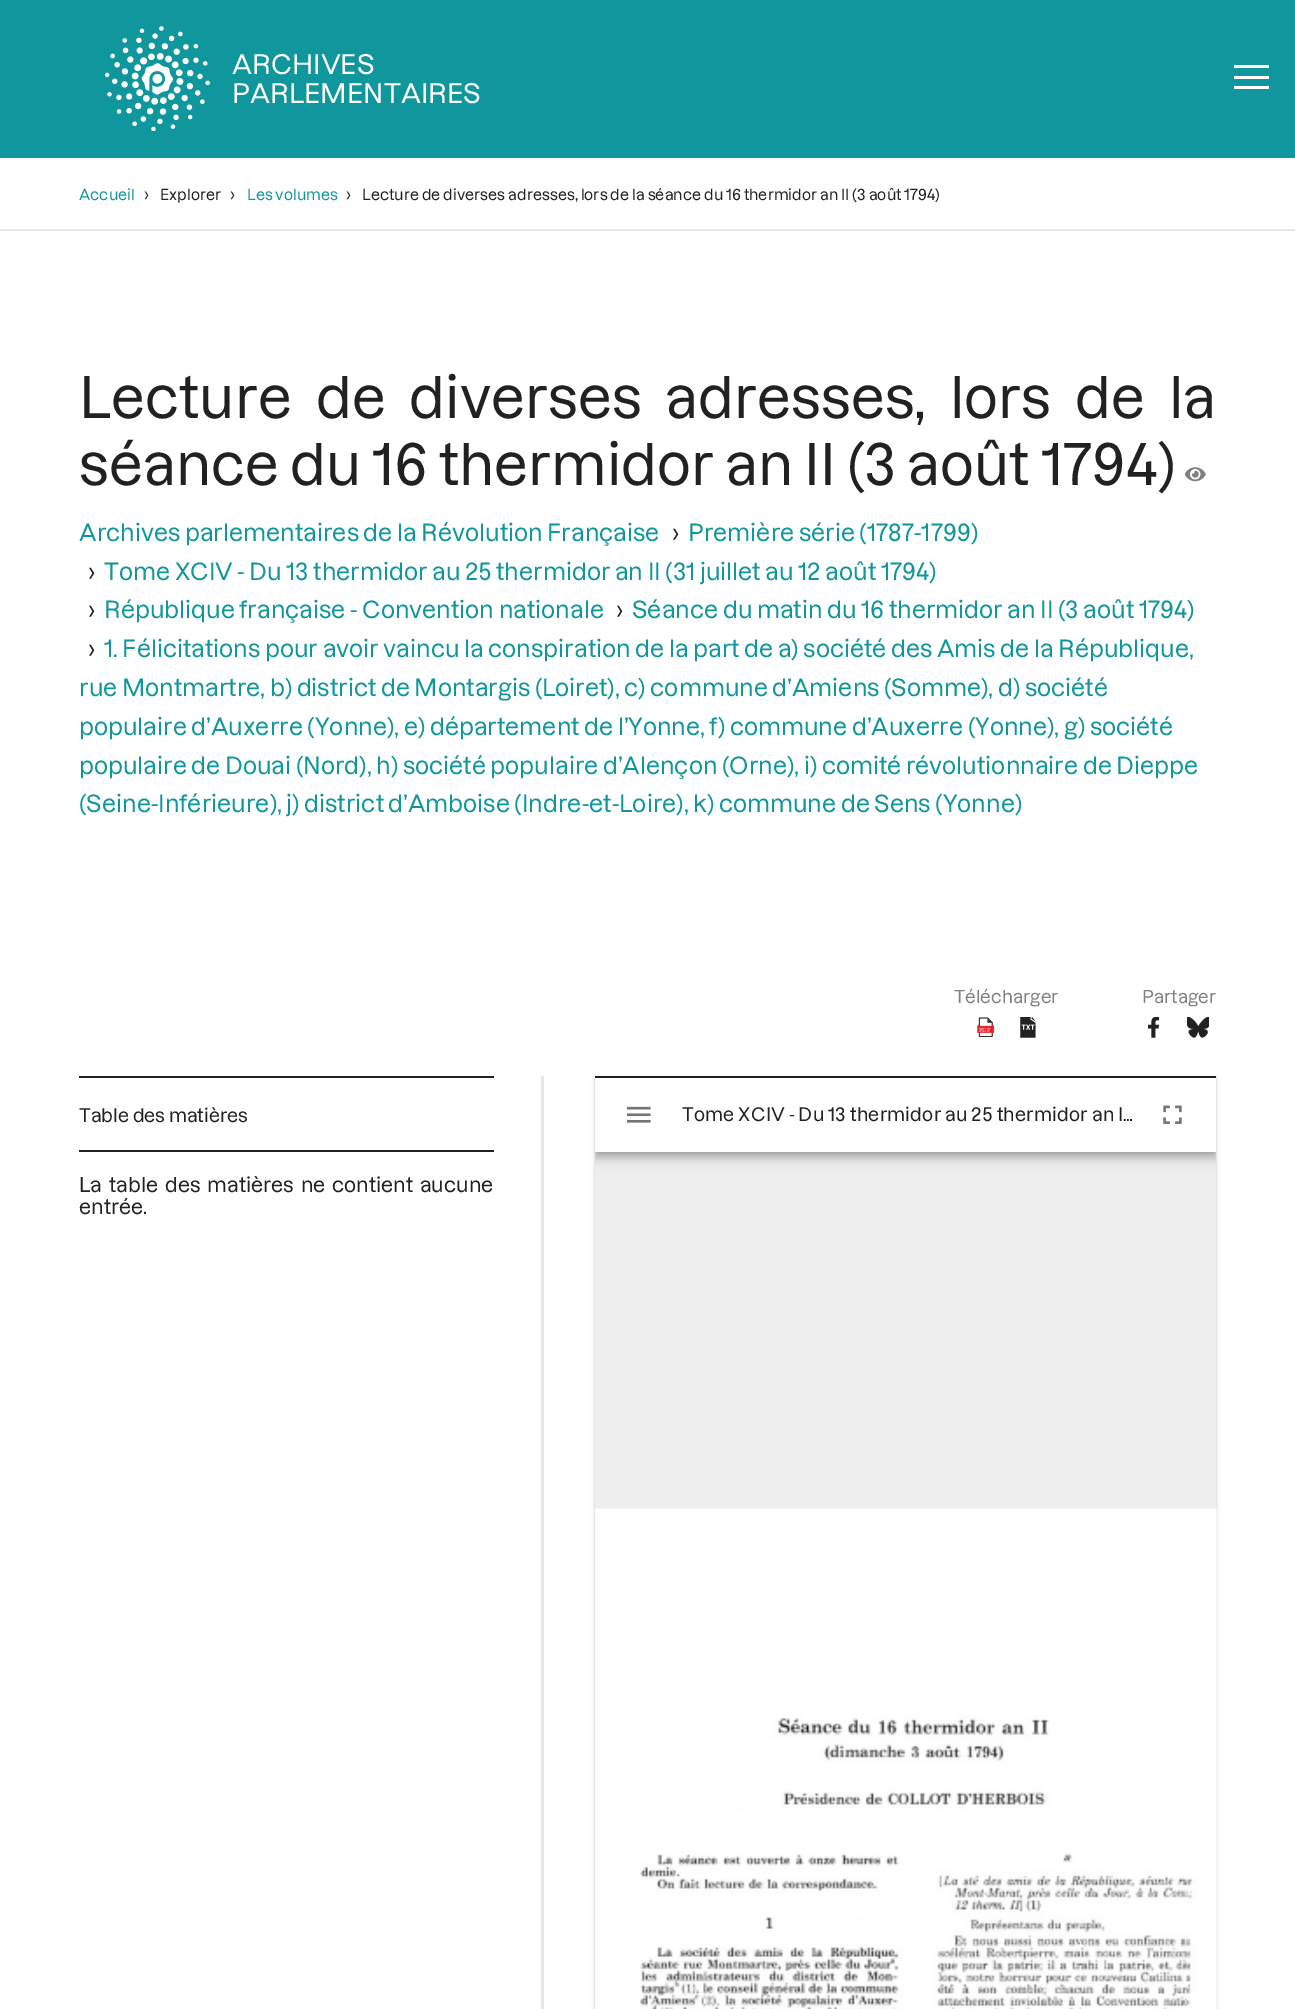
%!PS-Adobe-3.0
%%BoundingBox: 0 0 1295 2009
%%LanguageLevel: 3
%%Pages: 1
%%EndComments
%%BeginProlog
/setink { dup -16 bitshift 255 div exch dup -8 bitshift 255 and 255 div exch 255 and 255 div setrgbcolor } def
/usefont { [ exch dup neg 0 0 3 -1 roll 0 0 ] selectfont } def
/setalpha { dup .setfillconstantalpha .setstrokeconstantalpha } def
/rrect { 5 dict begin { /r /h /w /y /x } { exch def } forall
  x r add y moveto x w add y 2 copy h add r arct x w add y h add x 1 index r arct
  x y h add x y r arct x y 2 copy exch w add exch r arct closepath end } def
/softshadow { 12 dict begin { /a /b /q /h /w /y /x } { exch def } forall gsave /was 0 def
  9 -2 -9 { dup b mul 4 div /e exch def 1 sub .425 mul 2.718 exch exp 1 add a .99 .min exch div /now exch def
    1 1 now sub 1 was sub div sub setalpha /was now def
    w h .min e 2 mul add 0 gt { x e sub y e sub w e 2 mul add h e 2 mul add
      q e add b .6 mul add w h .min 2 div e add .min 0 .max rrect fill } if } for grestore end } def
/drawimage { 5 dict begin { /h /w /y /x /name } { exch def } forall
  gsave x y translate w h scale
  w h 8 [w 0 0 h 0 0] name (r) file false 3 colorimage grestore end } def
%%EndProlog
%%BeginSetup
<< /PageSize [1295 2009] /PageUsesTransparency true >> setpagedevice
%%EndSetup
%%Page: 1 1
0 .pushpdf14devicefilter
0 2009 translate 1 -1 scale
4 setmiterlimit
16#FFFFFF setink
0 0 1295 2009 rectfill
16#10969D setink
0 0 1295 158 rectfill
(img1.raw) 105 26 105 105 drawimage
/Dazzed-Medium 26.5 usefont
16#FFFFFF setink
232 74 moveto (ARCHIVES) show
232 103 moveto (PARLEMENTAIRES) show
[
    [1234 65 35 3 16#FFFFFF]
    [1234 76 35 3 16#FFFFFF]
    [1234 86 35 3 16#FFFFFF]
    [0 229 1295 2 16#E6E6E6]
] { aload pop setink rectfill } forall
/Dazzed-Medium 14.95 usefont
16#10969D setink
79 200 moveto (Accueil) show
/Dazzed-Medium 16 usefont
16#212121 setink
144 200 moveto (›) show
/Dazzed-Medium 14.95 usefont
160 200 moveto (Explorer) show
/Dazzed-Medium 16 usefont
230 200 moveto (›) show
/Dazzed-Medium 14.95 usefont
16#10969D setink
247 200 moveto (Les volumes) show
/Dazzed-Medium 16 usefont
16#212121 setink
346 200 moveto (›) show
/Dazzed-Medium 14.95 usefont
362 200 moveto (Lecture de diverses adresses, lors de la séance du 16 thermidor an II \(3 août 1794\)) show
/Dazzed-Medium 56 usefont
79 418 moveto 13 0 32 (Lecture de diverses adresses, lors de la) widthshow
79 485 moveto (séance du 16 thermidor an II \(3 août 1794\)) show
(img2.raw) 1185 467 21 15 drawimage
/Dazzed-Medium 23.25 usefont
16#10969D setink
79 541 moveto (Archives parlementaires de la Révolution Française) show
16#212121 setink
672 541 moveto (›) show
16#10969D setink
688 541 moveto (Première série \(1787-1799\)) show
16#212121 setink
88 580 moveto (›) show
16#10969D setink
104 580 moveto (Tome XCIV - Du 13 thermidor au 25 thermidor an II \(31 juillet au 12 août 1794\)) show
16#212121 setink
88 618 moveto (›) show
16#10969D setink
104 618 moveto (République française - Convention nationale) show
16#212121 setink
616 618 moveto (›) show
16#10969D setink
632 618 moveto (Séance du matin du 16 thermidor an II \(3 août 1794\)) show
16#212121 setink
88 657 moveto (›) show
16#10969D setink
[
    [(1. Félicitations pour avoir vaincu la conspiration de la part de a\) société des Amis de la République,) 104 657]
    [(rue Montmartre, b\) district de Montargis \(Loiret\), c\) commune d’Amiens \(Somme\), d\) société) 79 696]
    [(populaire d’Auxerre \(Yonne\), e\) département de l’Yonne, f\) commune d’Auxerre \(Yonne\), g\) société) 79 735]
    [(populaire de Douai \(Nord\), h\) société populaire d’Alençon \(Orne\), i\) comité révolutionnaire de Dieppe) 79 774]
    [(\(Seine-Inférieure\), j\) district d’Amboise \(Indre-et-Loire\), k\) commune de Sens \(Yonne\)) 79 812]
] { aload pop moveto show } forall
/Dazzed-Medium 17.5 usefont
16#808080 setink
954 1003 moveto (Télécharger) show
(img3.raw) 977 1017 17 20 drawimage
/LiberationSerif-Regular 6 usefont
16#FFFFFF setink
979 1032 moveto (PDF) show
(img4.raw) 1020 1017 16 21 drawimage
/Dazzed-Medium 17.5 usefont
16#808080 setink
1142 1003 moveto (Partager) show
(img5.raw) 1148 1017 11 21 drawimage
(img6.raw) 1187 1017 22 21 drawimage
16#212121 setink
79 1076 415 2 rectfill
79 1150 415 2 rectfill
/Dazzed-Medium 18.25 usefont
79 1122 moveto (Table des matières) show
/Dazzed-Medium 19.9 usefont
79 1192 moveto 3 0 32 (La table des matières ne contient aucune) widthshow
79 1214 moveto (entrée.) show
16#E6E6E6 setink
541 1076 3 933 rectfill
16#000000 setink
595 1078 621 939 0 2.5 0.12 softshadow
595 1078 621 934 0 1 0.14 softshadow
16#EEEEEE setink
595 1152 621 357 rectfill
gsave
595 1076 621 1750 rectclip
16#000000 setink
595 1078 621 75 0 9 0.12 softshadow
595 1083 621 76 0 4.5 0.14 softshadow
597 1082 618 71 0 3.5 0.2 softshadow
grestore
16#FFFFFF setink
595 1078 621 74 rectfill
16#212121 setink
595 1076 621 2 rectfill
(img7.raw) 626 1106 25 17 drawimage
/Dazzed-Medium 18.25 usefont
682 1121 moveto 0.2 0 (Tome XCIV - Du 13 thermidor au 25 thermidor an I…) ashow
(img8.raw) 1163 1105 19 19 drawimage
(img9.raw) 595 1508 622 501 drawimage
.poppdf14devicefilter showpage
%%EOF
